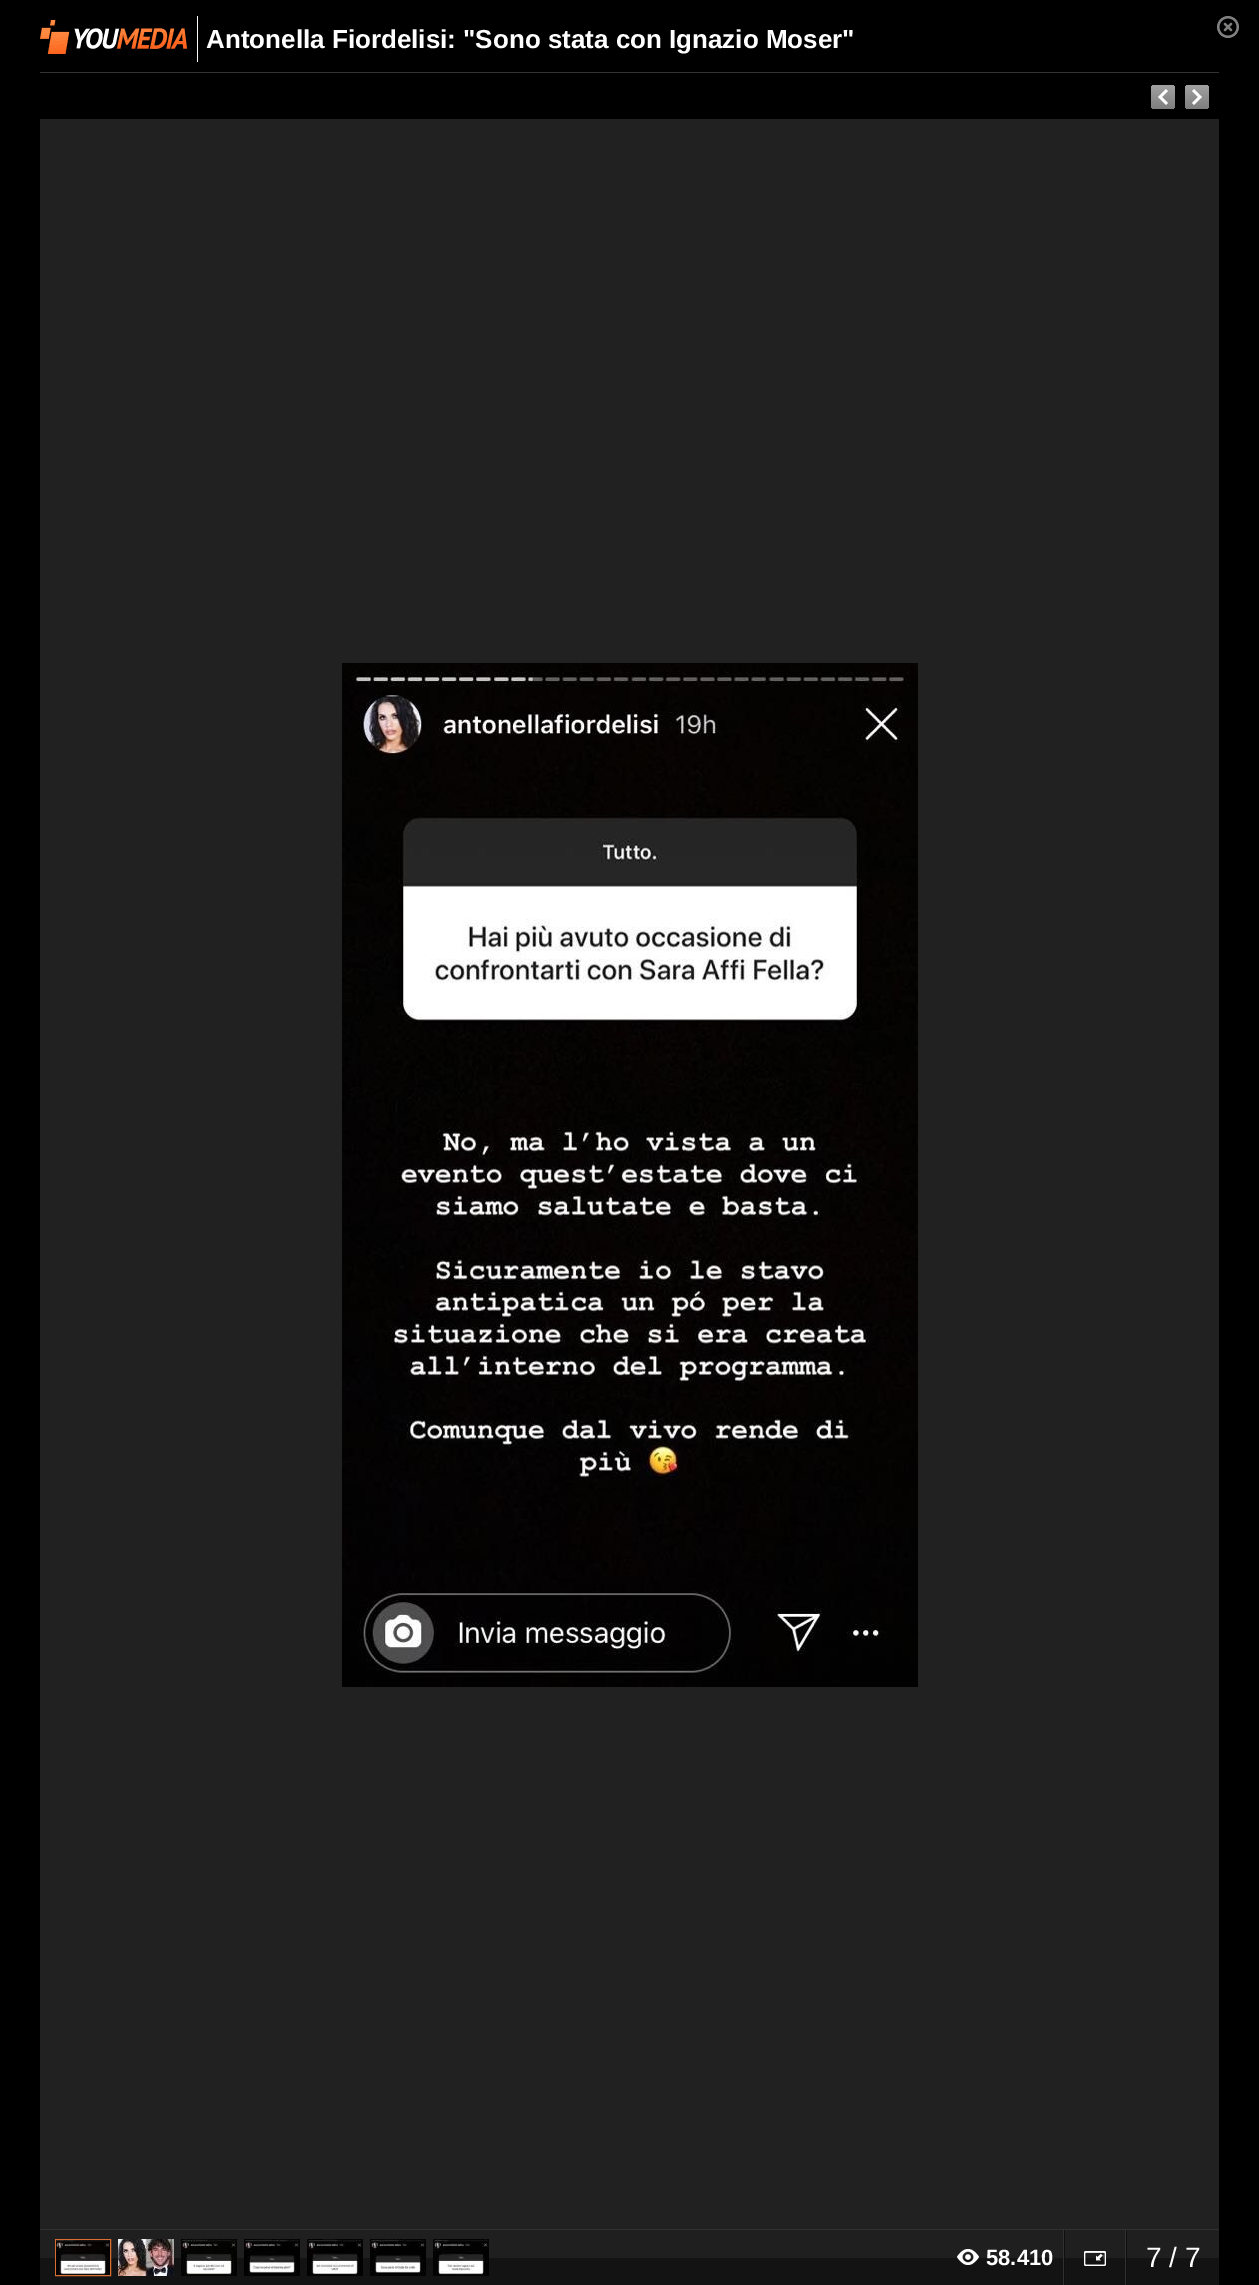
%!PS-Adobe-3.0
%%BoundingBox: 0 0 1259 2285
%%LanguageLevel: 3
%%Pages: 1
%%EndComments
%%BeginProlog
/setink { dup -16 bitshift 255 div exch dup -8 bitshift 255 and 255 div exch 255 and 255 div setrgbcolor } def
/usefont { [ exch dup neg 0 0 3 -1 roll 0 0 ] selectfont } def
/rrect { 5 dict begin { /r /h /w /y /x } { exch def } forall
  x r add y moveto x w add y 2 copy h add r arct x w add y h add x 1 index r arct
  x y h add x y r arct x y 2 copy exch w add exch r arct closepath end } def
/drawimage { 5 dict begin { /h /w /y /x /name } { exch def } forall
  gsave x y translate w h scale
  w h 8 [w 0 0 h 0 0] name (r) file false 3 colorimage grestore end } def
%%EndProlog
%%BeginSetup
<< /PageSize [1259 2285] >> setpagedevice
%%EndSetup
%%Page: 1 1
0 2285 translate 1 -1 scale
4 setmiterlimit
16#000000 setink
0 0 1259 2285 rectfill
16#333333 setink
40 72 1179 1 rectfill
(img1.raw) 40 20 147 34 drawimage
16#F7F7F5 setink
197 16 1 46 rectfill
/LiberationSans-Bold 26 usefont
16#FFFFFF setink
206 48 moveto (Antonella Fiordelisi: "Sono stata con Ignazio Moser") show
(img2.raw) 1217 16 22 22 drawimage
gsave 1151 85 24 24 4 rrect clip newpath
<< /ShadingType 2 /ColorSpace /DeviceRGB /Coords [1163 85 1163 109] /Extend [true true] /Function << /FunctionType 2 /Domain [0 1] /C0 [0.631 0.631 0.631] /C1 [0.494 0.494 0.494] /N 1 >> >> shfill grestore
(img3.raw) 1158 89 10 16 drawimage
gsave 1185 85 24 24 4 rrect clip newpath
<< /ShadingType 2 /ColorSpace /DeviceRGB /Coords [1197 85 1197 109] /Extend [true true] /Function << /FunctionType 2 /Domain [0 1] /C0 [0.631 0.631 0.631] /C1 [0.494 0.494 0.494] /N 1 >> >> shfill grestore
(img4.raw) 1192 89 10 16 drawimage
16#212121 setink
40 119 1179 2110 rectfill
(img5.raw) 342 663 576 1024 drawimage
[
    [40 2258 1179 27 16#131313]
    [40 2230 1179 28 16#1F1F1F]
    [40 2229 1179 1 16#313131]
] { aload pop setink rectfill } forall
16#DA6D31 setink
55.5 2239.5 55 36 rectstroke
(img6.raw) 56 2240 54 35 drawimage
(img7.raw) 118 2239 56 37 drawimage
(img8.raw) 181 2239 56 37 drawimage
(img9.raw) 244 2239 56 37 drawimage
(img10.raw) 307 2239 56 37 drawimage
(img11.raw) 370 2239 56 37 drawimage
(img12.raw) 433 2239 56 37 drawimage
16#313131 setink
1063 2230 1 55 rectfill
(img13.raw) 957 2249 22 16 drawimage
/LiberationSans-Bold 22 usefont
16#FFFFFF setink
986 2265 moveto (58.410) show
16#313131 setink
1125 2230 1 55 rectfill
16#0F0F0F setink
1064 2230 1 55 rectfill
(img14.raw) 1084 2251 22 15 drawimage
1126 2230 1 55 rectfill
/LiberationSans-Regular 28 usefont
16#FFFFFF setink
1146 2267 moveto (7 / 7) show
showpage
%%EOF
